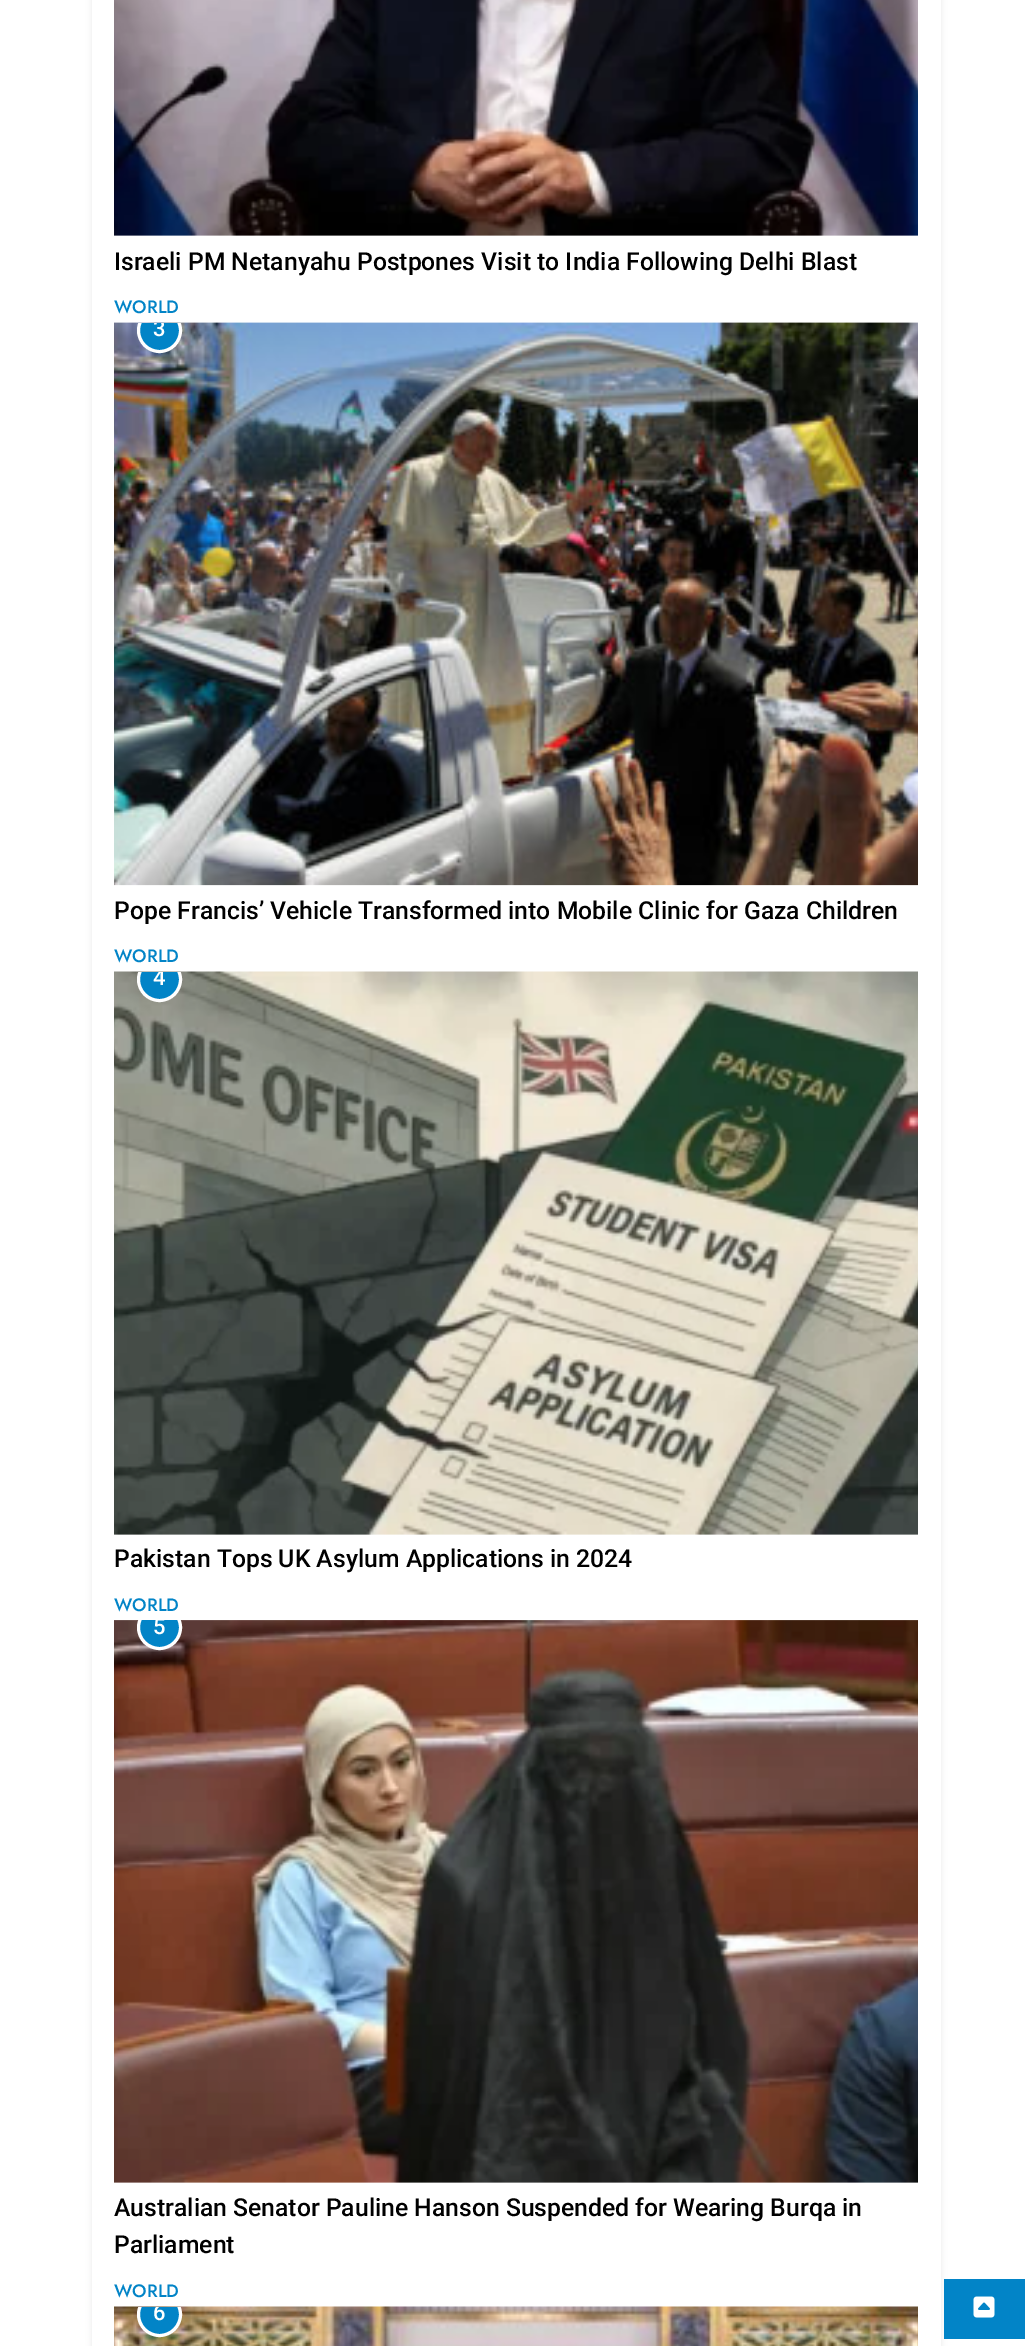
%!PS-Adobe-3.0
%%BoundingBox: 0 0 1032 2346
%%LanguageLevel: 3
%%Pages: 1
%%EndComments
%%BeginProlog
/setink { dup -16 bitshift 255 div exch dup -8 bitshift 255 and 255 div exch 255 and 255 div setrgbcolor } def
/usefont { [ exch dup neg 0 0 3 -1 roll 0 0 ] selectfont } def
/setalpha { dup .setfillconstantalpha .setstrokeconstantalpha } def
/disc { newpath 0 360 arc closepath } def
/rrect { 5 dict begin { /r /h /w /y /x } { exch def } forall
  x r add y moveto x w add y 2 copy h add r arct x w add y h add x 1 index r arct
  x y h add x y r arct x y 2 copy exch w add exch r arct closepath end } def
/softshadow { 12 dict begin { /a /b /q /h /w /y /x } { exch def } forall gsave /was 0 def
  9 -2 -9 { dup b mul 4 div /e exch def 1 sub .425 mul 2.718 exch exp 1 add a .99 .min exch div /now exch def
    1 1 now sub 1 was sub div sub setalpha /was now def
    w h .min e 2 mul add 0 gt { x e sub y e sub w e 2 mul add h e 2 mul add
      q e add b .6 mul add w h .min 2 div e add .min 0 .max rrect fill } if } for grestore end } def
/drawimage { 5 dict begin { /h /w /y /x /name } { exch def } forall
  gsave x y translate w h scale
  w h 8 [w 0 0 h 0 0] name (r) file false 3 colorimage grestore end } def
%%EndProlog
%%BeginSetup
<< /PageSize [1032 2346] /PageUsesTransparency true >> setpagedevice
%%EndSetup
%%Page: 1 1
0 .pushpdf14devicefilter
0 2346 translate 1 -1 scale
4 setmiterlimit
16#FFFFFF setink
0 0 1032 2346 rectfill
16#000000 setink
92 -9 849 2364 0 3 0.08 softshadow
16#FFFFFF setink
92 0 849 2346 rectfill
(img1.raw) 114 0 804 236 drawimage
/Roboto-Medium 24.75 usefont
16#000000 setink
114 270 moveto (Israeli PM Netanyahu Postpones Visit to India Following Delhi Blast) show
/Jost-Medium 18 usefont
16#0284C7 setink
114 313 moveto (WORLD) show
(img2.raw) 114 322 804 564 drawimage
gsave
114 323 804 649 rectclip
159.5 330.5 21 disc gsave fill grestore
16#FFFFFF setink
3 setlinewidth
stroke
/Roboto-Medium 22 usefont
153 336 moveto (3) show
grestore
/Roboto-Medium 24.75 usefont
16#000000 setink
114 919 moveto (Pope Francis’ Vehicle Transformed into Mobile Clinic for Gaza Children) show
/Jost-Medium 18 usefont
16#0284C7 setink
114 962 moveto (WORLD) show
(img3.raw) 114 971 804 564 drawimage
gsave
114 972 804 648 rectclip
159.5 979.5 21 disc gsave fill grestore
16#FFFFFF setink
3 setlinewidth
stroke
/Roboto-Medium 22 usefont
153 985 moveto (4) show
grestore
/Roboto-Medium 24.75 usefont
16#000000 setink
114 1567 moveto (Pakistan Tops UK Asylum Applications in 2024) show
/Jost-Medium 18 usefont
16#0284C7 setink
114 1611 moveto (WORLD) show
(img4.raw) 114 1620 804 563 drawimage
gsave
114 1620 804 687 rectclip
159.5 1627.5 21 disc gsave fill grestore
16#FFFFFF setink
3 setlinewidth
stroke
/Roboto-Medium 22 usefont
153 1634 moveto (5) show
grestore
/Roboto-Medium 24.75 usefont
16#000000 setink
114 2216 moveto (Australian Senator Pauline Hanson Suspended for Wearing Burqa in) show
114 2253 moveto (Parliament) show
/Jost-Medium 18 usefont
16#0284C7 setink
114 2297 moveto (WORLD) show
(img5.raw) 114 2306 804 40 drawimage
gsave
114 2307 804 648 rectclip
159.5 2314.5 21 disc gsave fill grestore
16#FFFFFF setink
3 setlinewidth
stroke
/Roboto-Medium 22 usefont
153 2320 moveto (6) show
grestore
944 2279 81 60 rectfill
(img6.raw) 973 2296 22 22 drawimage
.poppdf14devicefilter showpage
%%EOF
